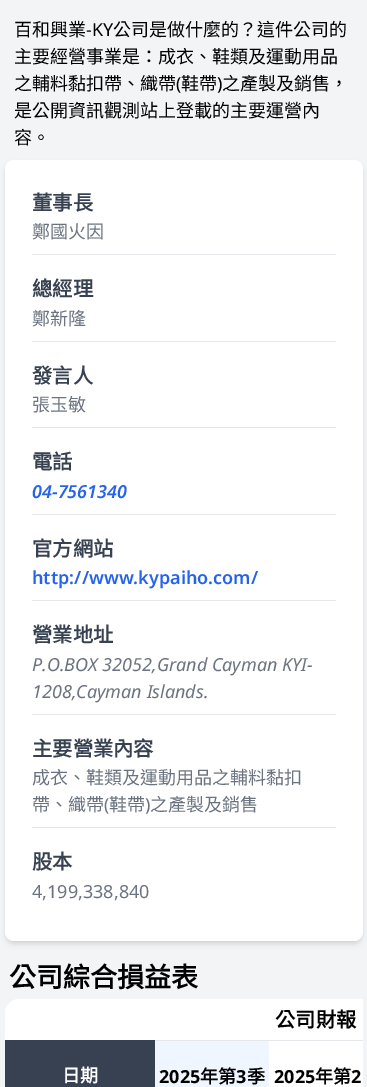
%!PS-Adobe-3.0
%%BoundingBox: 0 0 367 1087
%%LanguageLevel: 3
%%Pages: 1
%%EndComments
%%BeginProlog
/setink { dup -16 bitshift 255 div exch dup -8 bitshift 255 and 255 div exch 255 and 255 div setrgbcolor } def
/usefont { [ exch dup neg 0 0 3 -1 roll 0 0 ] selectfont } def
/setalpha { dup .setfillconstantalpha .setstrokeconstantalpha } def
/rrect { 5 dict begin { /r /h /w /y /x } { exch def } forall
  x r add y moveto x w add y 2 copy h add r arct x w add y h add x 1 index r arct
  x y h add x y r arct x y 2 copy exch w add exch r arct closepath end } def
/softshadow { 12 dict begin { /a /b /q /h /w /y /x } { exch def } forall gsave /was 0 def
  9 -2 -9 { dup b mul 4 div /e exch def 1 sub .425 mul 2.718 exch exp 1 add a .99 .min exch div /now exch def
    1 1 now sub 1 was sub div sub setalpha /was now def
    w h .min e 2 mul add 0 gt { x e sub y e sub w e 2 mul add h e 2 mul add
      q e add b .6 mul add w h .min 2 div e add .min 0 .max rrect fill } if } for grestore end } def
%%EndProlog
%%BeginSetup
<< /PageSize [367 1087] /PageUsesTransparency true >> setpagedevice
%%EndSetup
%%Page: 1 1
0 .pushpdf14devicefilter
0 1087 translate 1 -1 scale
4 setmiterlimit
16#F3F4F6 setink
0 0 367 1087 rectfill
/NotoSansCJKTC-Regular 18 usefont
16#000000 setink
14 36 moveto (百和興業) show
/NotoSans-Regular 18 usefont
86 36 moveto (-KY) show
/NotoSansCJKTC-Regular 18 usefont
[
    [(公司是做什麼的？這件公司的) 113 36]
    [(主要經營事業是：成衣、鞋類及運動用品) 14 63]
    [(之輔料黏扣帶、織帶) 14 90]
] { aload pop moveto show } forall
/NotoSans-Regular 18 usefont
176 90 moveto (\() show
/NotoSansCJKTC-Regular 18 usefont
181 90 moveto (鞋帶) show
/NotoSans-Regular 18 usefont
217 90 moveto (\)) show
/NotoSansCJKTC-Regular 18 usefont
[
    [(之產製及銷售，) 222 90]
    [(是公開資訊觀測站上登載的主要運營內) 14 117]
    [(容。) 14 144]
] { aload pop moveto show } forall
7 164 354 777 7 2 0.1 softshadow
6 165 356 779 8 3 0.1 softshadow
16#FFFFFF setink
5 160 358 781 9 rrect fill
16#E5E7EB setink
32 254 304 1 rectfill
/NotoSansCJKTC-Bold 20.25 usefont
16#374151 setink
32 210 moveto (董事長) show
/NotoSansCJKTC-Regular 18 usefont
16#6B7280 setink
32 238 moveto (鄭國火因) show
16#E5E7EB setink
32 341 304 1 rectfill
/NotoSansCJKTC-Bold 20.25 usefont
16#374151 setink
32 296 moveto (總經理) show
/NotoSansCJKTC-Regular 18 usefont
16#6B7280 setink
32 325 moveto (鄭新隆) show
16#E5E7EB setink
32 427 304 1 rectfill
/NotoSansCJKTC-Bold 20.25 usefont
16#374151 setink
32 383 moveto (發言人) show
/NotoSansCJKTC-Regular 18 usefont
16#6B7280 setink
32 411 moveto (張玉敏) show
16#E5E7EB setink
32 514 304 1 rectfill
/NotoSansCJKTC-Bold 20.25 usefont
16#374151 setink
32 469 moveto (電話) show
/NotoSans-SemiBoldItalic 18 usefont
16#2563EB setink
32 498 moveto (04-7561340) show
16#E5E7EB setink
32 600 304 1 rectfill
/NotoSansCJKTC-Bold 20.25 usefont
16#374151 setink
32 556 moveto (官方網站) show
/NotoSans-SemiBold 18 usefont
16#2563EB setink
32 584 moveto (http://www.kypaiho.com/) show
16#E5E7EB setink
32 714 304 1 rectfill
/NotoSansCJKTC-Bold 20.25 usefont
16#374151 setink
32 642 moveto (營業地址) show
/NotoSans-Italic 18 usefont
16#6B7280 setink
32 671 moveto (P.O.BOX 32052,Grand Cayman KYI-) show
32 698 moveto (1208,Cayman Islands.) show
16#E5E7EB setink
32 827 304 1 rectfill
/NotoSansCJKTC-Bold 20.25 usefont
16#374151 setink
32 756 moveto (主要營業內容) show
/NotoSansCJKTC-Regular 18 usefont
16#6B7280 setink
32 784 moveto (成衣、鞋類及運動用品之輔料黏扣) show
32 811 moveto (帶、織帶) show
/NotoSans-Regular 18 usefont
104 811 moveto (\() show
/NotoSansCJKTC-Regular 18 usefont
109 811 moveto (鞋帶) show
/NotoSans-Regular 18 usefont
145 811 moveto (\)) show
/NotoSansCJKTC-Regular 18 usefont
150 811 moveto (之產製及銷售) show
/NotoSansCJKTC-Bold 20.25 usefont
16#374151 setink
32 869 moveto (股本) show
/NotoSans-Regular 18 usefont
16#6B7280 setink
32 898 moveto (4,199,338,840) show
/NotoSansCJKTC-Bold 27 usefont
16#000000 setink
9 987 moveto (公司綜合損益表) show
16#FFFFFF setink
19 999 moveto 363 999 lineto 363 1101 lineto 19 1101 lineto 11.5 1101 5 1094.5 5 1087 curveto 5 1013 lineto 5 1005.5 11.5 999 19 999 curveto closepath fill
/NotoSansCJKTC-Bold 20.25 usefont
16#000000 setink
275 1027 moveto (公司財報) show
16#374151 setink
5 1040 150 47 rectfill
/NotoSansCJKTC-Bold 18 usefont
16#FFFFFF setink
62 1082 moveto (日期) show
16#EFF6FF setink
155 1041 114 46 rectfill
16#E5E7EB setink
155 1040 208 1 rectfill
/NotoSans-Bold 18 usefont
16#000000 setink
159 1083 moveto (2025) show
/NotoSansCJKTC-Bold 18 usefont
200 1083 moveto (年第) show
/NotoSans-Bold 18 usefont
236 1083 moveto (3) show
/NotoSansCJKTC-Bold 18 usefont
247 1083 moveto (季) show
/NotoSans-Bold 18 usefont
274 1083 moveto (2025) show
/NotoSansCJKTC-Bold 18 usefont
315 1083 moveto (年第) show
/NotoSans-Bold 18 usefont
351 1083 moveto (2) show
.poppdf14devicefilter showpage
%%EOF
